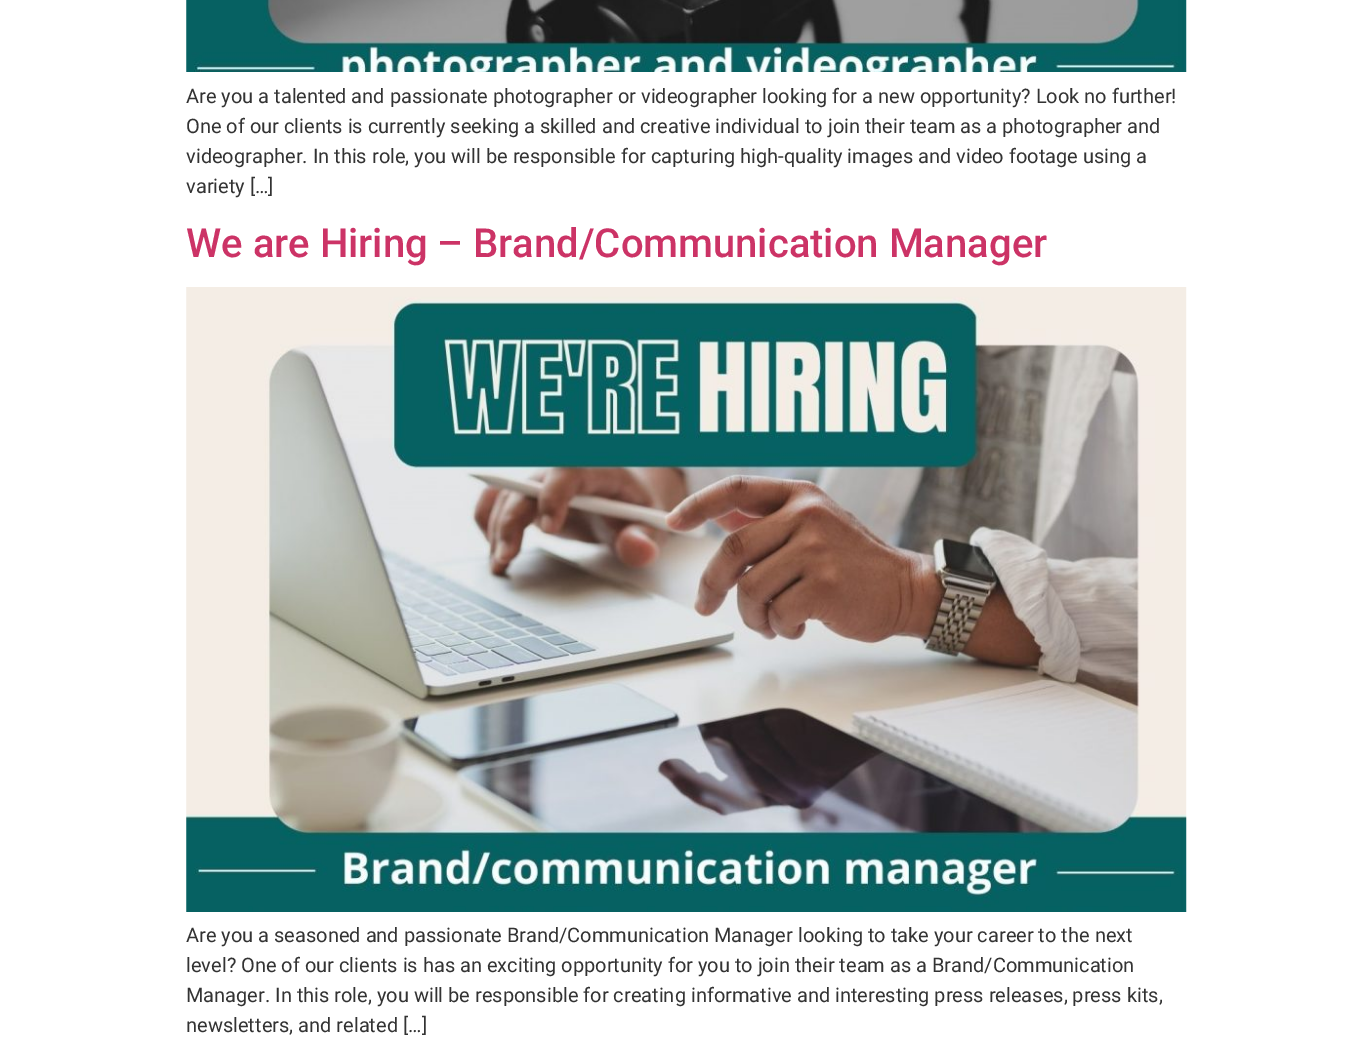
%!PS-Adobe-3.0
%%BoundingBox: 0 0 1371 1040
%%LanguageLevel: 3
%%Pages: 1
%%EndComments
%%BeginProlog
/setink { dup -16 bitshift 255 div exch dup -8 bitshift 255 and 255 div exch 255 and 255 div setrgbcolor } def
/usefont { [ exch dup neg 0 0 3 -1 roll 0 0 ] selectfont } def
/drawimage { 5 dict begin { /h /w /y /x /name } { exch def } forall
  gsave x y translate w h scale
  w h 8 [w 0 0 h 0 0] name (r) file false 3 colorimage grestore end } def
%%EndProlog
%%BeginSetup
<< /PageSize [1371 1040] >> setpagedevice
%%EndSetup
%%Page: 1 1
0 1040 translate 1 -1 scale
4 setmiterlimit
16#FFFFFF setink
0 0 1371 1040 rectfill
(img1.raw) 186 0 1001 72 drawimage
/Roboto-Regular 20 usefont
16#333333 setink
[
    [(Are you a talented and passionate photographer or videographer looking for a new opportunity? Look no further!) 186 103]
    [(One of our clients is currently seeking a skilled and creative individual to join their team as a photographer and) 186 133]
    [(videographer. In this role, you will be responsible for capturing high-quality images and video footage using a) 186 163]
    [(variety […]) 186 193]
] { aload pop moveto show } forall
/Roboto-Medium 40 usefont
16#CC3366 setink
186 257 moveto (We are Hiring – Brand/Communication Manager) show
(img2.raw) 186 287 1001 625 drawimage
/Roboto-Regular 20 usefont
16#333333 setink
[
    [(Are you a seasoned and passionate Brand/Communication Manager looking to take your career to the next) 186 942]
    [(level? One of our clients is has an exciting opportunity for you to join their team as a Brand/Communication) 186 972]
    [(Manager. In this role, you will be responsible for creating informative and interesting press releases, press kits,) 186 1002]
    [(newsletters, and related […]) 186 1032]
] { aload pop moveto show } forall
showpage
%%EOF
